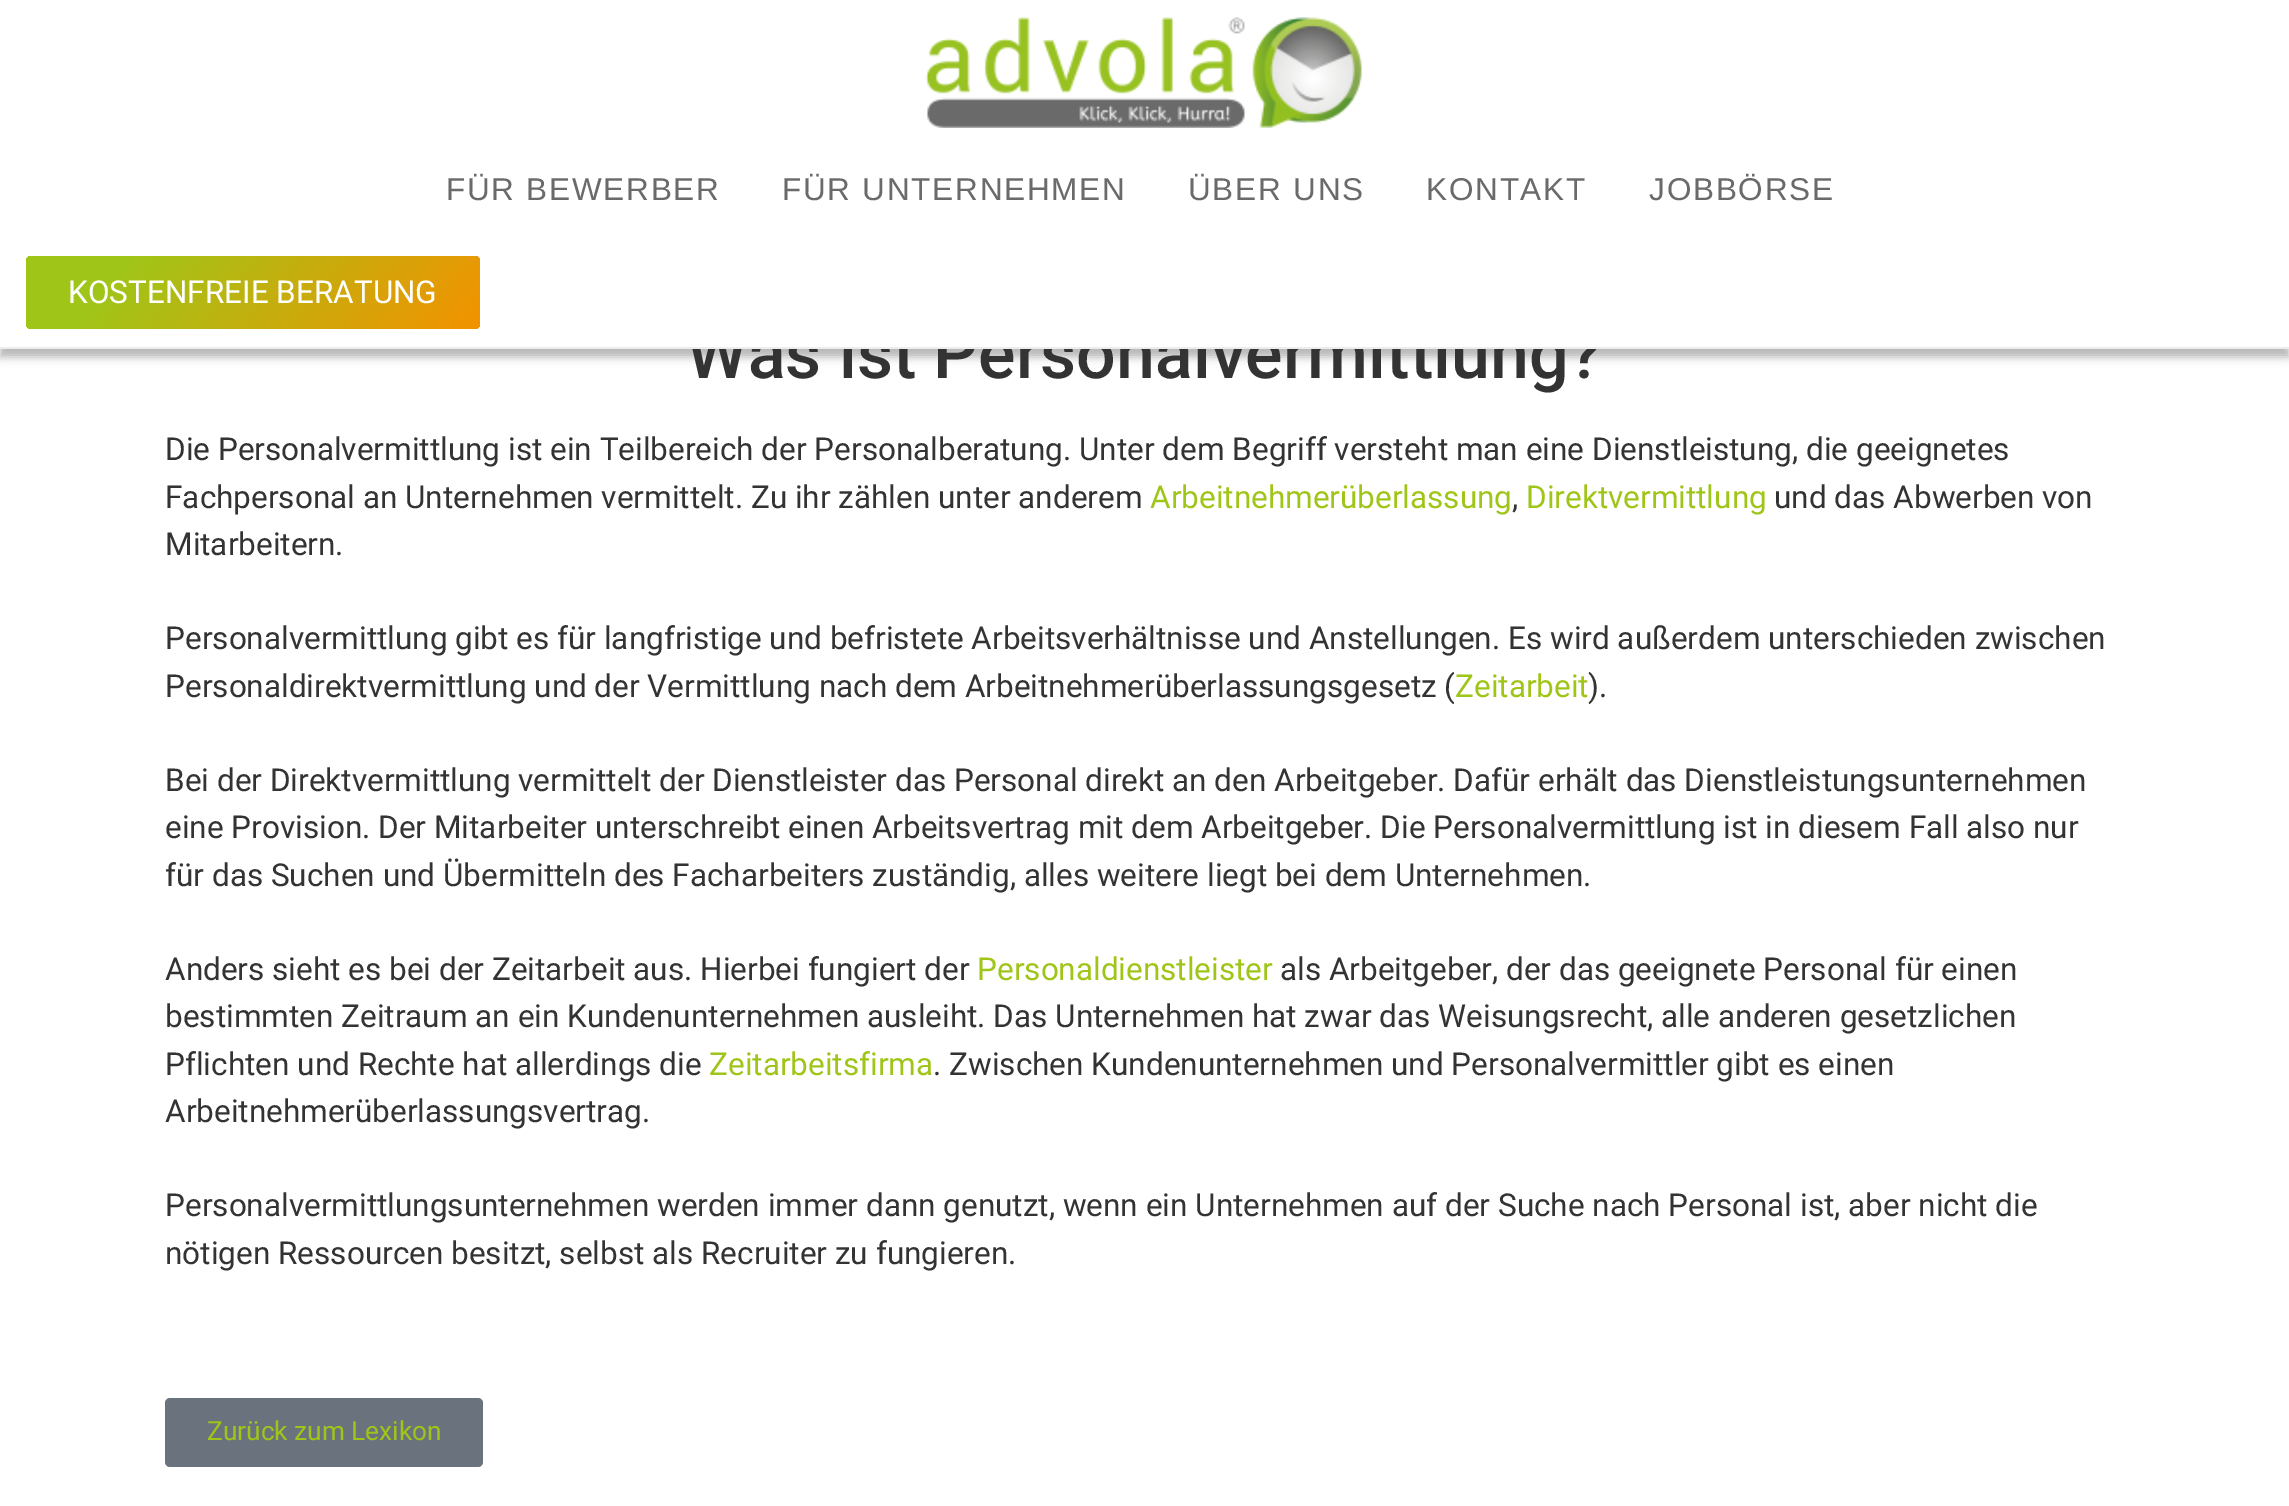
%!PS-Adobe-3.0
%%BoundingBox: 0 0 2289 1506
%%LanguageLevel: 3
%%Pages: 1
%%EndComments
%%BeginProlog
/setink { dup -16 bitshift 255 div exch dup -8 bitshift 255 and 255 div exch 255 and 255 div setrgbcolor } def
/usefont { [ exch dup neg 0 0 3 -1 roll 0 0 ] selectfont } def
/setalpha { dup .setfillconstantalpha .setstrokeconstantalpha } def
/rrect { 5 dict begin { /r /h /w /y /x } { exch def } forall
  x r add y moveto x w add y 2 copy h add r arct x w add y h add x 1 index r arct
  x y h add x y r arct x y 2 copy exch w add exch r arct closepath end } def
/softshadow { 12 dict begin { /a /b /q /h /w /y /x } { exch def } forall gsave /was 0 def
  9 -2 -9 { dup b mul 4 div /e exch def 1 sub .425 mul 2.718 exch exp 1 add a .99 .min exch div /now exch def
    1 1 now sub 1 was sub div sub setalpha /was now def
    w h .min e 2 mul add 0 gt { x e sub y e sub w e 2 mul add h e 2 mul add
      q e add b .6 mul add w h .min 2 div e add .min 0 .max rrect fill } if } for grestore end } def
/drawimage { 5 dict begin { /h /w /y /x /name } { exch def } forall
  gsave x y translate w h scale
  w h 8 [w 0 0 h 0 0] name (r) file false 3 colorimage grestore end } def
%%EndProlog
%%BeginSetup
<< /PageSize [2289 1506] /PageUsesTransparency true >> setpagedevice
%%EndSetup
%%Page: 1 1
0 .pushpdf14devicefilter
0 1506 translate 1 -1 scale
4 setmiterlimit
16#FFFFFF setink
0 0 2289 1506 rectfill
16#000000 setink
0 9 2289 348 0 4.5 0.28 softshadow
/Roboto-Medium 70 usefont
16#333333 setink
686 378 moveto (Was ist Personalvermittlung?) show
16#FFFFFF setink
0 1 2289 346 rectfill
16#ECEDEE setink
0 347 2289 2 rectfill
(img1.raw) 925 17 437 111 drawimage
/LiberationSans-Regular 31.5 usefont
16#6B6A6A setink
446 200 moveto 1.75 0 (FÜR BEWERBER) ashow
782 200 moveto 1.75 0 (FÜR UNTERNEHMEN) ashow
1188 200 moveto 1.75 0 (ÜBER UNS) ashow
1426 200 moveto 1.75 0 (KONTAKT) ashow
1649 200 moveto 1.75 0 (JOBBÖRSE) ashow
gsave 26 256 454 73 5 rrect clip newpath
<< /ShadingType 2 /ColorSpace /DeviceRGB /Coords [404 419 102 165] /Extend [true true] /Function << /FunctionType 3 /Domain [0 1] /Functions [<< /FunctionType 2 /Domain [0 1] /C0 [0.953 0.573 0] /C1 [0.627 0.773 0.098] /N 1 >> << /FunctionType 2 /Domain [0 1] /C0 [0.627 0.773 0.098] /C1 [0.627 0.773 0.098] /N 1 >>] /Bounds [0.8] /Encode [0 1 0 1] >> >> shfill grestore
/Roboto-Regular 31.5 usefont
16#FFFFFF setink
68 303 moveto (KOSTENFREIE BERATUNG) show
16#333333 setink
165 460 moveto (Die Personalvermittlung ist ein Teilbereich der Personalberatung. Unter dem Begriff versteht man eine Dienstleistung, die geeignetes) show
165 508 moveto (Fachpersonal an Unternehmen vermittelt. Zu ihr zählen unter anderem) show
16#A0C519 setink
1150 508 moveto (Arbeitnehmerüberlassung) show
16#333333 setink
1512 508 moveto (,) show
16#A0C519 setink
1526 508 moveto (Direktvermittlung) show
16#333333 setink
[
    [(und das Abwerben von) 1774 508]
    [(Mitarbeitern.) 165 555]
    [(Personalvermittlung gibt es für langfristige und befristete Arbeitsverhältnisse und Anstellungen. Es wird außerdem unterschieden zwischen) 165 649]
    [(Personaldirektvermittlung und der Vermittlung nach dem Arbeitnehmerüberlassungsgesetz \() 165 697]
] { aload pop moveto show } forall
16#A0C519 setink
1455 697 moveto (Zeitarbeit) show
16#333333 setink
[
    [(\).) 1588 697]
    [(Bei der Direktvermittlung vermittelt der Dienstleister das Personal direkt an den Arbeitgeber. Dafür erhält das Dienstleistungsunternehmen) 165 791]
    [(eine Provision. Der Mitarbeiter unterschreibt einen Arbeitsvertrag mit dem Arbeitgeber. Die Personalvermittlung ist in diesem Fall also nur) 165 838]
    [(für das Suchen und Übermitteln des Facharbeiters zuständig, alles weitere liegt bei dem Unternehmen.) 165 886]
    [(Anders sieht es bei der Zeitarbeit aus. Hierbei fungiert der) 165 980]
] { aload pop moveto show } forall
16#A0C519 setink
977 980 moveto (Personaldienstleister) show
16#333333 setink
[
    [(als Arbeitgeber, der das geeignete Personal für einen) 1280 980]
    [(bestimmten Zeitraum an ein Kundenunternehmen ausleiht. Das Unternehmen hat zwar das Weisungsrecht, alle anderen gesetzlichen) 165 1027]
    [(Pflichten und Rechte hat allerdings die) 165 1075]
] { aload pop moveto show } forall
16#A0C519 setink
709 1075 moveto (Zeitarbeitsfirma) show
16#333333 setink
[
    [(. Zwischen Kundenunternehmen und Personalvermittler gibt es einen) 933 1075]
    [(Arbeitnehmerüberlassungsvertrag.) 165 1122]
    [(Personalvermittlungsunternehmen werden immer dann genutzt, wenn ein Unternehmen auf der Suche nach Personal ist, aber nicht die) 165 1216]
    [(nötigen Ressourcen besitzt, selbst als Recruiter zu fungieren.) 165 1264]
] { aload pop moveto show } forall
16#69727D setink
165 1398 318 69 5 rrect fill
/Roboto-Regular 26.25 usefont
16#A0C519 setink
207 1440 moveto (Zurück zum Lexikon) show
.poppdf14devicefilter showpage
%%EOF
